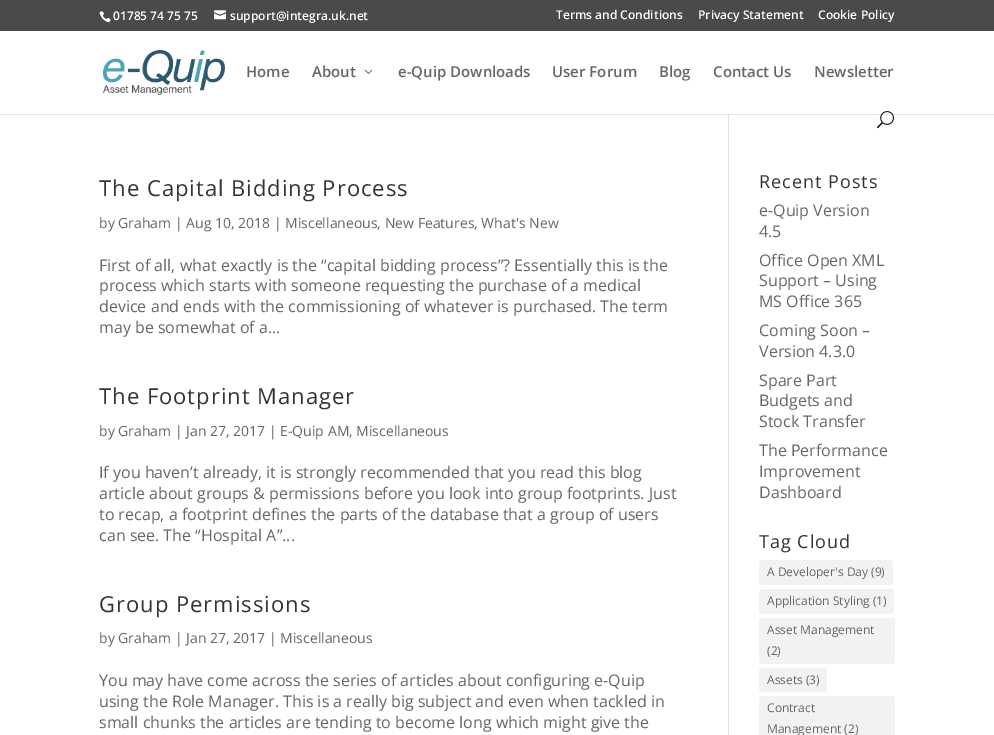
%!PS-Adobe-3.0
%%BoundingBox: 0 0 994 735
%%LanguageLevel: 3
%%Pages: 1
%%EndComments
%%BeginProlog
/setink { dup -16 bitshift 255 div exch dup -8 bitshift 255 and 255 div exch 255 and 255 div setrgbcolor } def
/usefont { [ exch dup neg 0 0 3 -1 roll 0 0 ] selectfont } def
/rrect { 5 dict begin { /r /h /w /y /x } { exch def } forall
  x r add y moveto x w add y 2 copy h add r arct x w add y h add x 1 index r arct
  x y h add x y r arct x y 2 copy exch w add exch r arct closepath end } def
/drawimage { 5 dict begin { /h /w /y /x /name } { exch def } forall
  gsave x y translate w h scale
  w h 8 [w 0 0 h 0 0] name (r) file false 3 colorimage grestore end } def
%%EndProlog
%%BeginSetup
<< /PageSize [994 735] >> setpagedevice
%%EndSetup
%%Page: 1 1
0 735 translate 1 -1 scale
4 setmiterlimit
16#FFFFFF setink
0 0 994 735 rectfill
16#E6E6E6 setink
0 114 994 1 rectfill
16#494B4B setink
0 0 994 31 rectfill
(img1.raw) 99 11 12 12 drawimage
/OpenSans-SemiBold 12 usefont
16#FFFFFF setink
113 20 moveto (01785 74 75 75) show
(img2.raw) 214 10 12 10 drawimage
[
    [(support@integra.uk.net) 230 20]
    [(Terms and Conditions) 556 19]
    [(Privacy Statement) 698 19]
    [(Cookie Policy) 818 19]
] { aload pop moveto show } forall
(img3.raw) 103 50 122 45 drawimage
/OpenSans-SemiBold 15 usefont
16#666666 setink
246 77 moveto (Home) show
312 77 moveto (About) show
(img4.raw) 364 69 9 5 drawimage
[
    [(e-Quip Downloads) 398 77]
    [(User Forum) 552 77]
    [(Blog) 659 77]
    [(Contact Us) 713 77]
    [(Newsletter) 814 77]
] { aload pop moveto show } forall
(img5.raw) 877 111 17 18 drawimage
16#E2E2E2 setink
728 114 1 621 rectfill
16#CBCBCB setink
728 114 1 1 rectfill
/OpenSans-Regular 22 usefont
16#333333 setink
99 196 moveto 1 0 (The Capital Bidding Process) ashow
/OpenSans-Regular 14 usefont
16#666666 setink
99 228 moveto (by Graham | Aug 10, 2018 | Miscellaneous, New Features, What's New) show
/OpenSans-Regular 16 usefont
[
    [(First of all, what exactly is the “capital bidding process”? Essentially this is the) 99 271]
    [(process which starts with someone requesting the purchase of a medical) 99 291]
    [(device and ends with the commissioning of whatever is purchased. The term) 99 312]
    [(may be somewhat of a...) 99 333]
] { aload pop moveto show } forall
/OpenSans-Regular 22 usefont
16#333333 setink
99 404 moveto 1 0 (The Footprint Manager) ashow
/OpenSans-Regular 14 usefont
16#666666 setink
99 436 moveto (by Graham | Jan 27, 2017 | E-Quip AM, Miscellaneous) show
/OpenSans-Regular 16 usefont
[
    [(If you haven’t already, it is strongly recommended that you read this blog) 99 478]
    [(article about groups & permissions before you look into group footprints. Just) 99 499]
    [(to recap, a footprint defines the parts of the database that a group of users) 99 520]
    [(can see. The “Hospital A”...) 99 541]
] { aload pop moveto show } forall
/OpenSans-Regular 22 usefont
16#333333 setink
99 612 moveto 1 0 (Group Permissions) ashow
/OpenSans-Regular 14 usefont
16#666666 setink
99 643 moveto (by Graham | Jan 27, 2017 | Miscellaneous) show
/OpenSans-Regular 16 usefont
[
    [(You may have come across the series of articles about configuring e-Quip) 99 686]
    [(using the Role Manager. This is a really big subject and even when tackled in) 99 707]
    [(small chunks the articles are tending to become long which might give the) 99 728]
] { aload pop moveto show } forall
/OpenSans-Regular 18 usefont
16#333333 setink
759 188 moveto 1 0 (Recent Posts) ashow
/OpenSans-Regular 16 usefont
16#666666 setink
[
    [(e-Quip Version) 759 216]
    [(4.5) 759 237]
    [(Office Open XML) 759 266]
    [(Support – Using) 759 286]
    [(MS Office 365) 759 307]
    [(Coming Soon –) 759 336]
    [(Version 4.3.0) 759 357]
    [(Spare Part) 759 386]
    [(Budgets and) 759 406]
    [(Stock Transfer) 759 427]
    [(The Performance) 759 456]
    [(Improvement) 759 477]
    [(Dashboard) 759 498]
] { aload pop moveto show } forall
/OpenSans-Regular 18 usefont
16#333333 setink
759 548 moveto 1 0 (Tag Cloud) ashow
16#F2F2F2 setink
759 560 134 25 3 rrect fill
/OpenSans-Regular 12 usefont
16#666666 setink
767 576 moveto (A Developer's Day \(9\)) show
16#F2F2F2 setink
759 589 135 25 3 rrect fill
16#666666 setink
767 605 moveto (Application Styling \(1\)) show
16#F2F2F2 setink
759 618 136 46 3 rrect fill
16#666666 setink
767 634 moveto (Asset Management) show
767 655 moveto (\(2\)) show
16#F2F2F2 setink
759 668 68 24 3 rrect fill
16#666666 setink
767 684 moveto (Assets \(3\)) show
16#F2F2F2 setink
759 696 136 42 3 rrect fill
16#666666 setink
767 712 moveto (Contract) show
767 733 moveto (Management \(2\)) show
showpage
%%EOF
